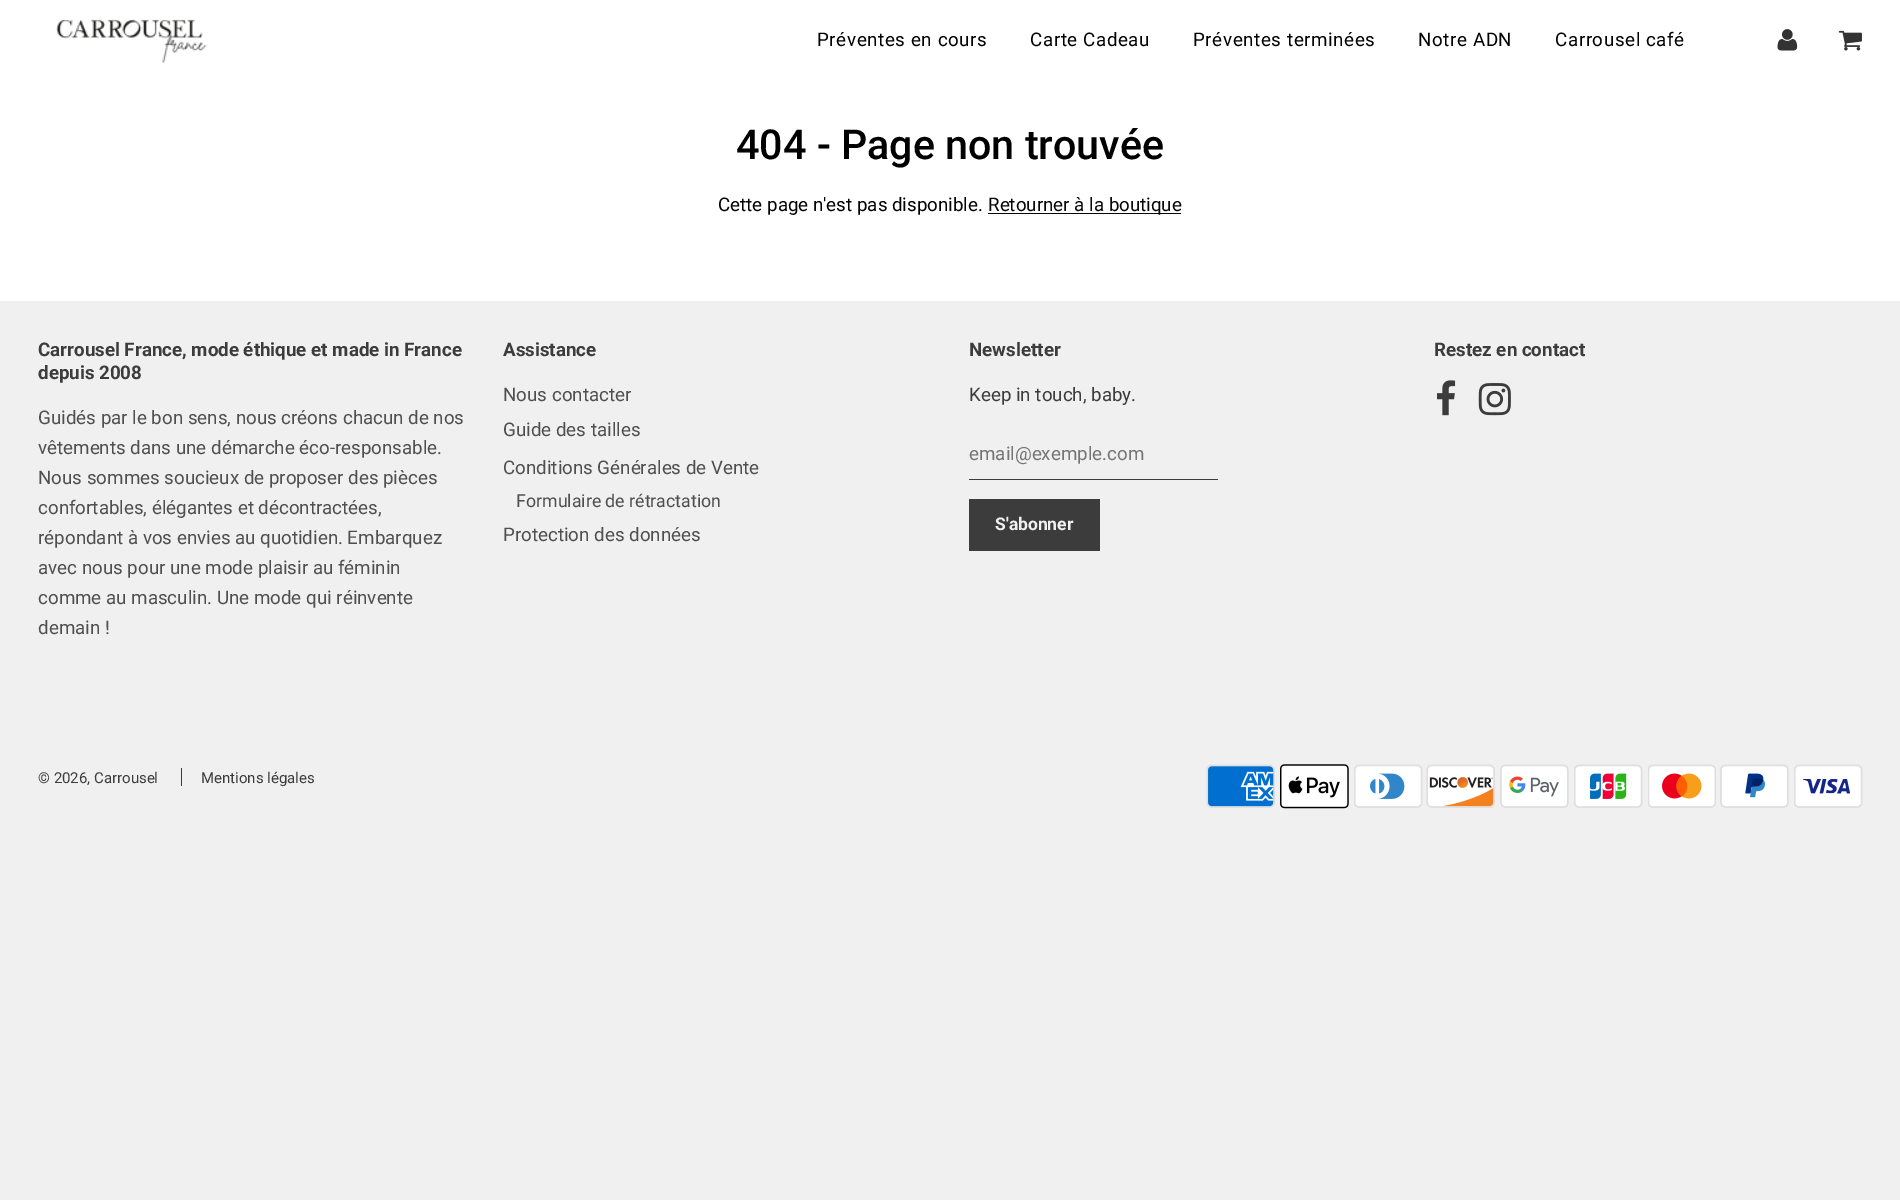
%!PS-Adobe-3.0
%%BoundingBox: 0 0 1900 1200
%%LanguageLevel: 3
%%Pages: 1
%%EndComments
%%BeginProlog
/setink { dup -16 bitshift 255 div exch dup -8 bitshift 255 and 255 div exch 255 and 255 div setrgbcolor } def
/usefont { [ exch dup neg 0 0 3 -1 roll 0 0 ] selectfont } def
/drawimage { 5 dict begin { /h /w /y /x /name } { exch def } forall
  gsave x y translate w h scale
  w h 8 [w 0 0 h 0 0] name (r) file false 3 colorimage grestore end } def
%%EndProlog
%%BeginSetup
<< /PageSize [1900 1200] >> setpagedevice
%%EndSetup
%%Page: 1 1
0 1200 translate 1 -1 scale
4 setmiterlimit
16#F0F0F0 setink
0 0 1900 1200 rectfill
16#FFFFFF setink
0 0 1900 301 rectfill
(img1.raw) 56 19 151 44 drawimage
/Roboto-Regular 18.75 usefont
16#000000 setink
817 46 moveto 0.6 0 (Préventes en cours) ashow
1030 46 moveto 0.6 0 (Carte Cadeau) ashow
1193 46 moveto 0.6 0 (Préventes terminées) ashow
1418 46 moveto 0.6 0 (Notre ADN) ashow
1555 46 moveto 0.6 0 (Carrousel café) ashow
(img2.raw) 1777 29 21 22 drawimage
(img3.raw) 1838 30 24 21 drawimage
/Roboto-Medium 41.25 usefont
736 159 moveto (404 - Page non trouvée) show
/Roboto-Regular 18.75 usefont
718 211 moveto (Cette page n'est pas disponible.) show
16#080606 setink
988 213 193 1 rectfill
988 211 moveto (Retourner à la boutique) show
/Roboto-Bold 18.75 usefont
16#3C3C3C setink
38 356 moveto (Carrousel France, mode éthique et made in France) show
38 379 moveto (depuis 2008) show
/Roboto-Regular 18.75 usefont
16#4F4F4F setink
[
    [(Guidés par le bon sens, nous créons chacun de nos) 38 424]
    [(vêtements dans une démarche éco-responsable.) 38 454]
    [(Nous sommes soucieux de proposer des pièces) 38 484]
    [(confortables, élégantes et décontractées,) 38 514]
    [(répondant à vos envies au quotidien. Embarquez) 38 544]
    [(avec nous pour une mode plaisir au féminin) 38 574]
    [(comme au masculin. Une mode qui réinvente) 38 604]
    [(demain !) 38 634]
] { aload pop moveto show } forall
/Roboto-Bold 18.75 usefont
16#3C3C3C setink
503 356 moveto (Assistance) show
/Roboto-Regular 18.75 usefont
16#4F4F4F setink
[
    [(Nous contacter) 503 401]
    [(Guide des tailles) 503 436]
    [(Conditions Générales de Vente) 503 474]
] { aload pop moveto show } forall
/Roboto-Regular 17.75 usefont
516 507 moveto (Formulaire de rétractation) show
/Roboto-Regular 18.75 usefont
503 541 moveto (Protection des données) show
/Roboto-Bold 18.75 usefont
16#3C3C3C setink
969 356 moveto (Newsletter) show
/Roboto-Regular 18.75 usefont
969 401 moveto (Keep in touch, baby.) show
969 479 249 1 rectfill
16#757575 setink
969 460 moveto (email@exemple.com) show
16#3C3C3C setink
969 499 131 52 rectfill
/Roboto-Bold 17.5 usefont
16#F0F0F0 setink
995 530 moveto (S'abonner) show
/Roboto-Bold 18.75 usefont
16#3C3C3C setink
1434 356 moveto (Restez en contact) show
(img4.raw) 1437 380 19 36 drawimage
(img5.raw) 1478 383 33 33 drawimage
/Roboto-Regular 15 usefont
38 783 moveto (© 2026, Carrousel) show
181 768 1 18 rectfill
201 783 moveto (Mentions légales) show
(img6.raw) 1206 764 69 44 drawimage
(img7.raw) 1280 764 69 45 drawimage
(img8.raw) 1354 764 69 44 drawimage
(img9.raw) 1426 764 69 44 drawimage
(img10.raw) 1500 764 69 44 drawimage
(img11.raw) 1574 764 69 44 drawimage
(img12.raw) 1648 764 68 44 drawimage
(img13.raw) 1720 764 69 44 drawimage
(img14.raw) 1794 764 69 44 drawimage
showpage
%%EOF
